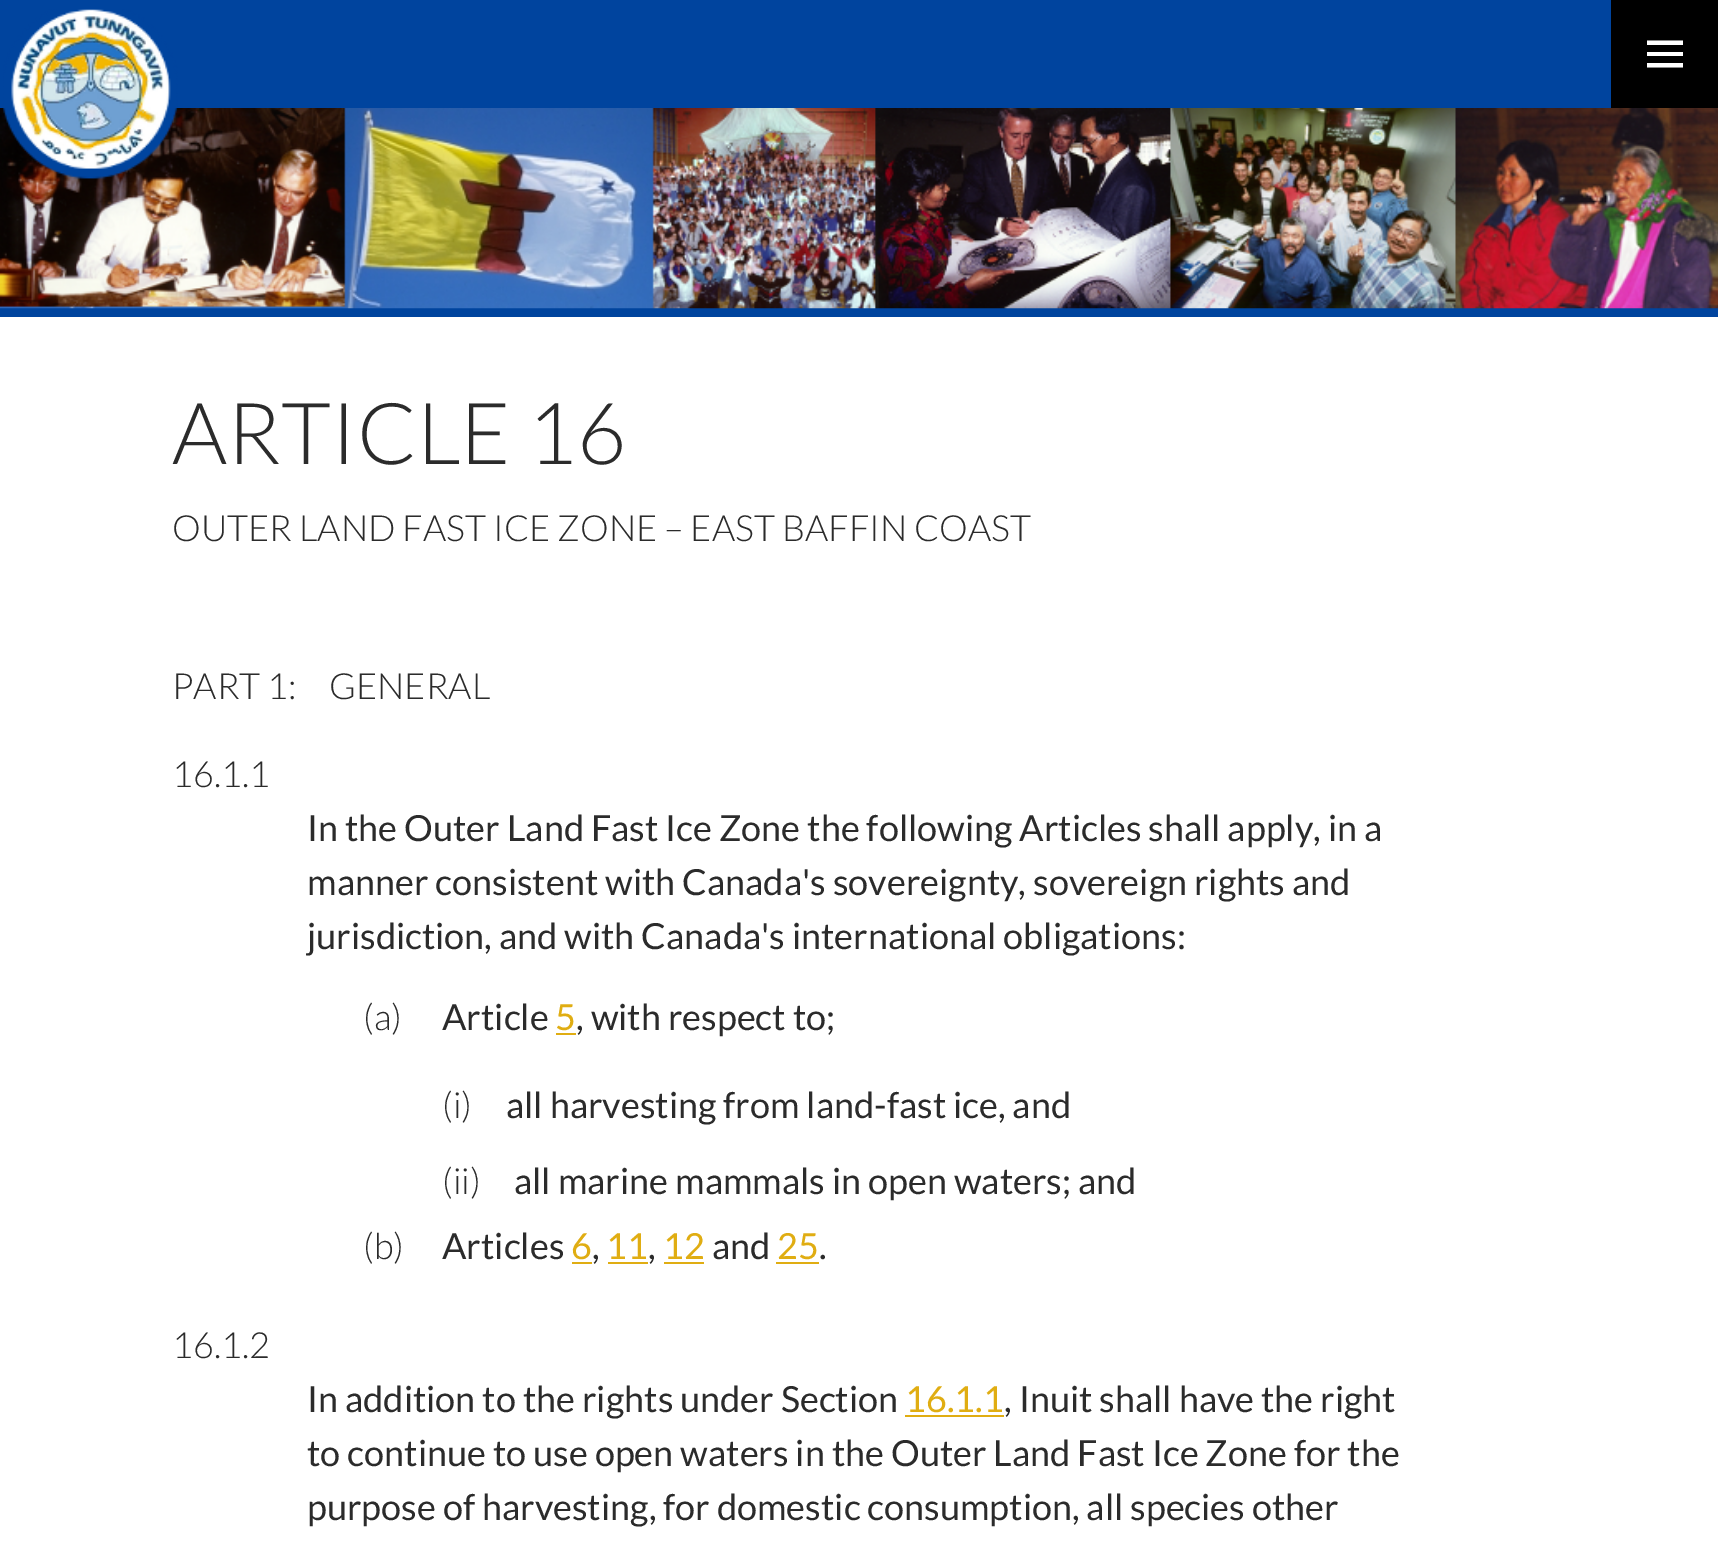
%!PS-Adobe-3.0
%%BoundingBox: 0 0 1718 1563
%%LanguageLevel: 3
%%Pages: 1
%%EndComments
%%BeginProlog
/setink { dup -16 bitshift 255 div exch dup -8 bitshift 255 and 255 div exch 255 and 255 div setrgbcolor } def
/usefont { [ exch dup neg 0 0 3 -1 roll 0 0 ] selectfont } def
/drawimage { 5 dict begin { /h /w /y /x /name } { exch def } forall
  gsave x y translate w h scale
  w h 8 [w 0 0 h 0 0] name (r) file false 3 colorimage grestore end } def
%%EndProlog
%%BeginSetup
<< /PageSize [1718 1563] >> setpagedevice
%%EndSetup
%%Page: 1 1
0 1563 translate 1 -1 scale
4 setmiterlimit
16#FFFFFF setink
0 0 1718 1563 rectfill
16#00449E setink
0 0 1611 108 rectfill
0 308 1718 9 rectfill
(img2.raw) 0 108 1718 201 drawimage
(img1.raw) 3 9 175 170 drawimage
16#000000 setink
1611 0 107 108 rectfill
16#FFFFFF setink
1647 67.5 moveto 1647 63 lineto 1683 63 lineto 1683 67.5 lineto closepath 1647 56 moveto 1647 52 lineto 1683 52 lineto 1683 56 lineto closepath 1647 45 moveto 1647 40.5 lineto 1683 40.5 lineto 1683 45 lineto closepath fill
/Lato-Light 85.5 usefont
16#2B2B2B setink
172 464 moveto (ARTICLE 16) show
/Lato-Light 36 usefont
[
    [(OUTER LAND FAST ICE ZONE – EAST BAFFIN COAST) 172 541]
    [(PART 1:) 172 699]
    [(GENERAL) 329 699]
    [(16.1.1) 172 787]
] { aload pop moveto show } forall
/Lato-Regular 36 usefont
[
    [(In the Outer Land Fast Ice Zone the following Articles shall apply, in a) 307 841]
    [(manner consistent with Canada's sovereignty, sovereign rights and) 307 895]
    [(jurisdiction, and with Canada's international obligations:) 307 949]
] { aload pop moveto show } forall
/Lato-Light 36 usefont
363 1030 moveto (\(a\)) show
/Lato-Regular 36 usefont
442 1030 moveto (Article) show
16#E0AD12 setink
555 1030 moveto (5) show
556 1033 20 2 rectfill
16#2B2B2B setink
576 1030 moveto (, with respect to;) show
/Lato-Light 36 usefont
442 1118 moveto (\(i\)) show
/Lato-Regular 36 usefont
506 1118 moveto (all harvesting from land-fast ice, and) show
/Lato-Light 36 usefont
442 1194 moveto (\(ii\)) show
/Lato-Regular 36 usefont
514 1194 moveto (all marine mammals in open waters; and) show
/Lato-Light 36 usefont
363 1259 moveto (\(b\)) show
/Lato-Regular 36 usefont
442 1259 moveto (Articles) show
16#E0AD12 setink
571 1259 moveto (6) show
572 1262 20 2 rectfill
16#2B2B2B setink
592 1259 moveto (,) show
16#E0AD12 setink
606 1259 moveto (11) show
608 1262 40 2 rectfill
16#2B2B2B setink
648 1259 moveto (,) show
16#E0AD12 setink
663 1259 moveto (12) show
664 1262 40 2 rectfill
16#2B2B2B setink
712 1259 moveto (and) show
16#E0AD12 setink
777 1259 moveto (25) show
776 1262 43 2 rectfill
16#2B2B2B setink
819 1259 moveto (.) show
/Lato-Light 36 usefont
172 1358 moveto (16.1.2) show
/Lato-Regular 36 usefont
307 1412 moveto (In addition to the rights under Section) show
16#E0AD12 setink
905 1412 moveto (16.1.1) show
905 1415 99 2 rectfill
16#2B2B2B setink
[
    [(, Inuit shall have the right) 1004 1412]
    [(to continue to use open waters in the Outer Land Fast Ice Zone for the) 307 1466]
    [(purpose of harvesting, for domestic consumption, all species other) 307 1520]
] { aload pop moveto show } forall
showpage
%%EOF
